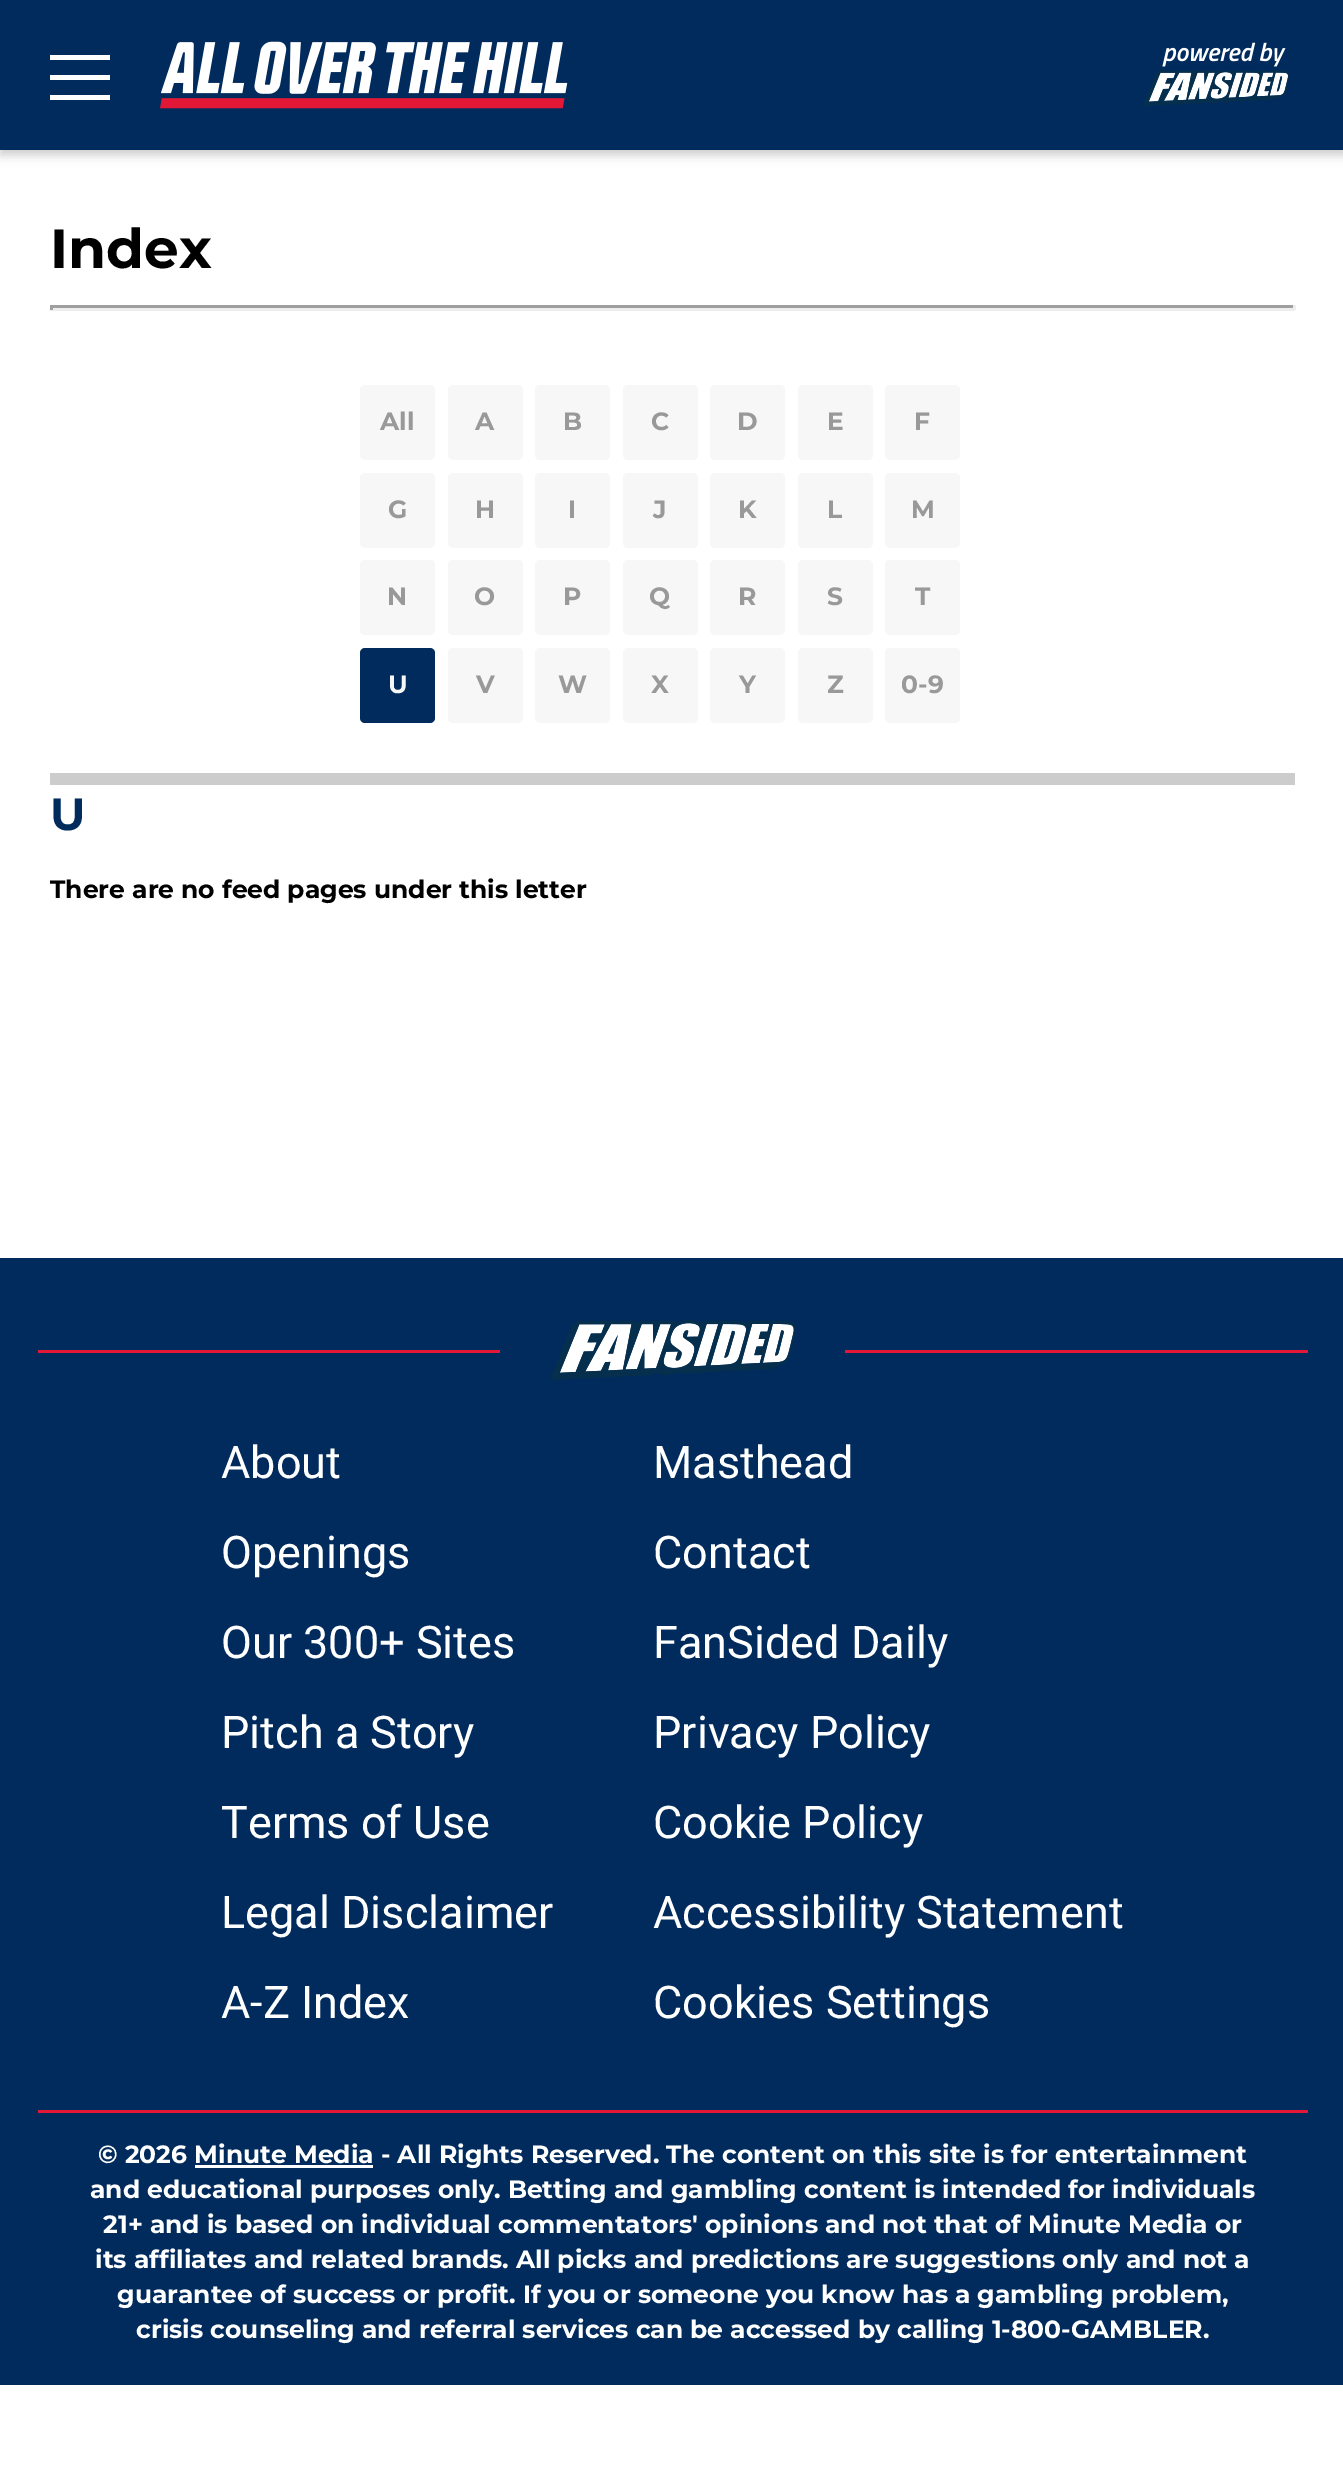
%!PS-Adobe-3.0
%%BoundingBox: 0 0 1343 2465
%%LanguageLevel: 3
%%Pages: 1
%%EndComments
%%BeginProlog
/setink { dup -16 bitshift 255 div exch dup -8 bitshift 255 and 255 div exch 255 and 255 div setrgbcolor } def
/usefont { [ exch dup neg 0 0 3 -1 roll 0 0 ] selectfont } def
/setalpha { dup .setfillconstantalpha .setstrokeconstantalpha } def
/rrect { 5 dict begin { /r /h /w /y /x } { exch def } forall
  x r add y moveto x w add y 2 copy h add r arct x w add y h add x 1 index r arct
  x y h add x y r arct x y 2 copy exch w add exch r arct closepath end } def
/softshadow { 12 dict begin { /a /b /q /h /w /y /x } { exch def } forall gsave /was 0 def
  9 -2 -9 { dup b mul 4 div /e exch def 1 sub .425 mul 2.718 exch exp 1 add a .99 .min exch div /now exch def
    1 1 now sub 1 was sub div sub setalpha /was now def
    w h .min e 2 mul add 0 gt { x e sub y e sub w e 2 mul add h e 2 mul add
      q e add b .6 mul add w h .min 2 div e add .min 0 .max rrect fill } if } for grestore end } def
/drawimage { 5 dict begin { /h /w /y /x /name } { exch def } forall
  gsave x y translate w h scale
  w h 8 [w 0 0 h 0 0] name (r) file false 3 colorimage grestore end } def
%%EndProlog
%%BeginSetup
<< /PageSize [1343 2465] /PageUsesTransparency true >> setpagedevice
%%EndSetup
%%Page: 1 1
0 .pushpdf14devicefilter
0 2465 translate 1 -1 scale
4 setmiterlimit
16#FFFFFF setink
0 0 1343 2465 rectfill
16#000000 setink
0 5 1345 150 0 5 0.2 softshadow
[
    [0 0 1343 150 16#002B5C]
    [50 55 60 5 16#FFFFFF]
    [50 75 60 5 16#FFFFFF]
    [50 95 60 5 16#FFFFFF]
] { aload pop setink rectfill } forall
(img1.raw) 160 41 408 68 drawimage
(img2.raw) 1143 42 147 64 drawimage
/Montserrat-Bold 55 usefont
16#000000 setink
50 268 moveto (Index) show
[
    [50 305 1245 3 16#9F9F9F]
    [1293 305 3 5 16#EEEEEE]
    [50 308 1245 3 16#EEEEEE]
    [50 305 3 5 16#9F9F9F]
] { aload pop setink rectfill } forall
16#F7F7F7 setink
360 385 75 75 5 rrect fill
/Montserrat-Bold 25 usefont
16#999999 setink
380 430 moveto (All) show
16#F7F7F7 setink
448 385 75 75 5 rrect fill
16#999999 setink
475 430 moveto (A) show
16#F7F7F7 setink
535 385 75 75 5 rrect fill
16#999999 setink
563 430 moveto (B) show
16#F7F7F7 setink
623 385 75 75 5 rrect fill
16#999999 setink
651 430 moveto (C) show
16#F7F7F7 setink
710 385 75 75 5 rrect fill
16#999999 setink
737 430 moveto (D) show
16#F7F7F7 setink
798 385 75 75 5 rrect fill
16#999999 setink
827 430 moveto (E) show
16#F7F7F7 setink
885 385 75 75 5 rrect fill
16#999999 setink
914 430 moveto (F) show
16#F7F7F7 setink
360 473 75 75 5 rrect fill
16#999999 setink
388 518 moveto (G) show
16#F7F7F7 setink
448 473 75 75 5 rrect fill
16#999999 setink
475 518 moveto (H) show
16#F7F7F7 setink
535 473 75 75 5 rrect fill
16#999999 setink
568 518 moveto (I) show
16#F7F7F7 setink
623 473 75 75 5 rrect fill
16#999999 setink
653 518 moveto (J) show
16#F7F7F7 setink
710 473 75 75 5 rrect fill
16#999999 setink
738 518 moveto (K) show
16#F7F7F7 setink
798 473 75 75 5 rrect fill
16#999999 setink
827 518 moveto (L) show
16#F7F7F7 setink
885 473 75 75 5 rrect fill
16#999999 setink
911 518 moveto (M) show
16#F7F7F7 setink
360 560 75 75 5 rrect fill
16#999999 setink
387 605 moveto (N) show
16#F7F7F7 setink
448 560 75 75 5 rrect fill
16#999999 setink
474 605 moveto (O) show
16#F7F7F7 setink
535 560 75 75 5 rrect fill
16#999999 setink
563 605 moveto (P) show
16#F7F7F7 setink
623 560 75 75 5 rrect fill
16#999999 setink
649 605 moveto (Q) show
16#F7F7F7 setink
710 560 75 75 5 rrect fill
16#999999 setink
738 605 moveto (R) show
16#F7F7F7 setink
798 560 75 75 5 rrect fill
16#999999 setink
827 605 moveto (S) show
16#F7F7F7 setink
885 560 75 75 5 rrect fill
16#999999 setink
915 605 moveto (T) show
16#002B5C setink
360 648 75 75 5 rrect fill
16#F7F7F7 setink
388 693 moveto (U) show
448 648 75 75 5 rrect fill
16#999999 setink
476 693 moveto (V) show
16#F7F7F7 setink
535 648 75 75 5 rrect fill
16#999999 setink
558 693 moveto (W) show
16#F7F7F7 setink
623 648 75 75 5 rrect fill
16#999999 setink
651 693 moveto (X) show
16#F7F7F7 setink
710 648 75 75 5 rrect fill
16#999999 setink
739 693 moveto (Y) show
16#F7F7F7 setink
798 648 75 75 5 rrect fill
16#999999 setink
827 693 moveto (Z) show
16#F7F7F7 setink
885 648 75 75 5 rrect fill
16#999999 setink
901 693 moveto (0-9) show
16#CCCCCC setink
50 773 1245 12 rectfill
/Montserrat-Bold 45 usefont
16#002B5C setink
50 830 moveto (U) show
/Montserrat-Bold 25 usefont
16#000000 setink
50 898 moveto (There are no feed pages under this letter) show
16#002B5C setink
0 1258 1343 1127 rectfill
16#E31837 setink
38 1350 462 3 rectfill
(img3.raw) 550 1320 245 60 drawimage
845 1350 463 3 rectfill
/Roboto-Regular 45 usefont
16#FFFFFF setink
[
    [(About) 221 1478]
    [(Masthead) 653 1478]
    [(Openings) 221 1568]
    [(Contact) 653 1568]
    [(Our 300+ Sites) 221 1658]
    [(FanSided Daily) 653 1658]
    [(Pitch a Story) 221 1748]
    [(Privacy Policy) 653 1748]
    [(Terms of Use) 221 1838]
    [(Cookie Policy) 653 1838]
    [(Legal Disclaimer) 221 1928]
    [(Accessibility Statement) 653 1928]
    [(A-Z Index) 221 2018]
    [(Cookies Settings) 653 2018]
] { aload pop moveto show } forall
16#E31837 setink
38 2110 1270 3 rectfill
/Montserrat-Bold 25 usefont
16#FFFFFF setink
98 2163 moveto (© 2026 Minute Media - All Rights Reserved. The content on this site is for entertainment) show
195 2165 178 3 rectfill
[
    [(and educational purposes only. Betting and gambling content is intended for individuals) 90 2198]
    [(21+ and is based on individual commentators' opinions and not that of Minute Media or) 103 2233]
    [(its affiliates and related brands. All picks and predictions are suggestions only and not a) 95 2268]
    [(guarantee of success or profit. If you or someone you know has a gambling problem,) 117 2303]
    [(crisis counseling and referral services can be accessed by calling 1-800-GAMBLER.) 136 2338]
] { aload pop moveto show } forall
.poppdf14devicefilter showpage
%%EOF
